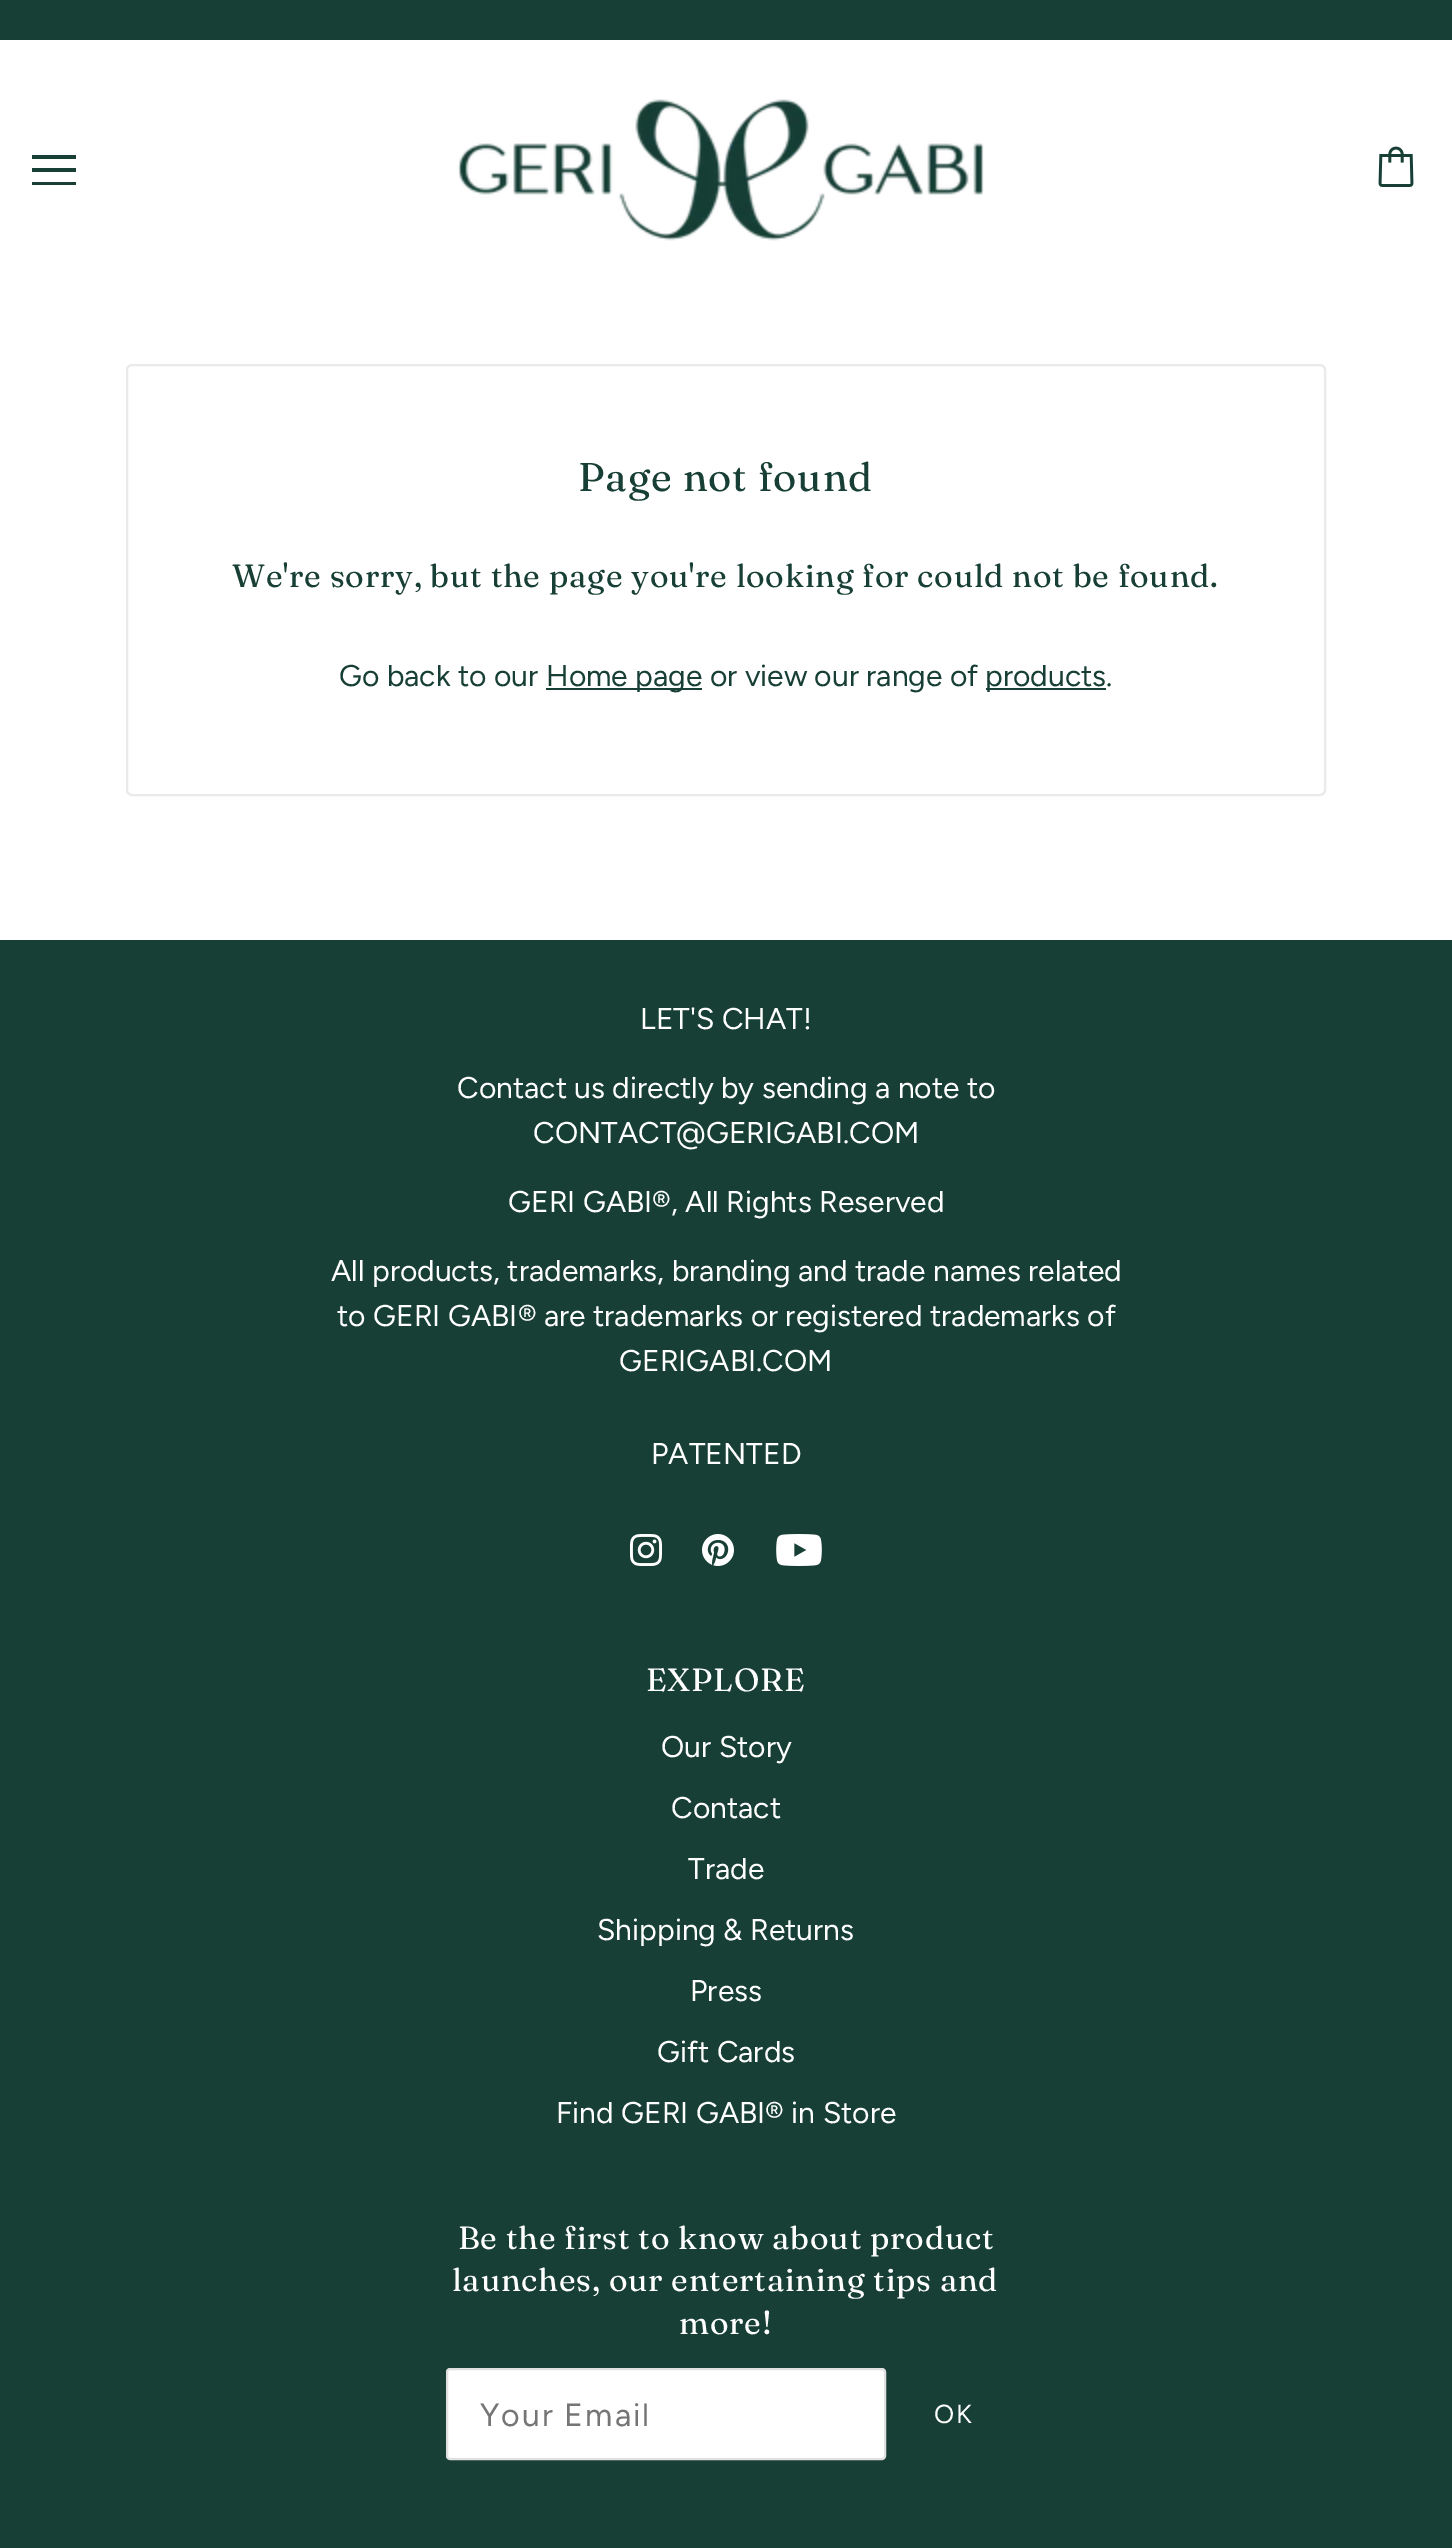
%!PS-Adobe-3.0
%%BoundingBox: 0 0 1452 2548
%%LanguageLevel: 3
%%Pages: 1
%%EndComments
%%BeginProlog
/setink { dup -16 bitshift 255 div exch dup -8 bitshift 255 and 255 div exch 255 and 255 div setrgbcolor } def
/usefont { [ exch dup neg 0 0 3 -1 roll 0 0 ] selectfont } def
/rrect { 5 dict begin { /r /h /w /y /x } { exch def } forall
  x r add y moveto x w add y 2 copy h add r arct x w add y h add x 1 index r arct
  x y h add x y r arct x y 2 copy exch w add exch r arct closepath end } def
/drawimage { 5 dict begin { /h /w /y /x /name } { exch def } forall
  gsave x y translate w h scale
  w h 8 [w 0 0 h 0 0] name (r) file false 3 colorimage grestore end } def
%%EndProlog
%%BeginSetup
<< /PageSize [1452 2548] >> setpagedevice
%%EndSetup
%%Page: 1 1
0 2548 translate 1 -1 scale
4 setmiterlimit
16#FFFFFF setink
0 0 1452 2548 rectfill
16#173F35 setink
0 0 1452 40 rectfill
32 159 moveto 32 155 lineto 76 155 lineto 76 159 lineto closepath 32 172 moveto 32 168 lineto 76 168 lineto 76 172 lineto closepath 32 185 moveto 32 182 lineto 76 182 lineto 76 185 lineto closepath fill
(img1.raw) 458 99 526 142 drawimage
(img2.raw) 1378 146 36 41 drawimage
16#EAEAEA setink
2 setlinewidth
127 365 1198 430 5 rrect stroke
/Fraunces-Regular 40 usefont
16#173F35 setink
578 491 moveto 1 0 (Page not found) ashow
/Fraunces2-Regular 32 usefont
232 587 moveto 0.8 0 (We're sorry, but the page you're looking for could not be found.) ashow
/Figtree-Regular 30 usefont
339 686 moveto (Go back to our) show
546 688 156 2 rectfill
546 686 moveto (Home page or view our range of) show
986 688 120 2 rectfill
985 686 moveto (products.) show
0 940 1452 1608 rectfill
16#FFFFFF setink
[
    [(LET'S CHAT!) 640 1029]
    [(Contact us directly by sending a note to) 457 1098]
    [(CONTACT@GERIGABI.COM) 533 1143]
    [(GERI GABI®, All Rights Reserved) 508 1212]
    [(All products, trademarks, branding and trade names related) 331 1281]
    [(to GERI GABI® are trademarks or registered trademarks of) 337 1326]
    [(GERIGABI.COM) 619 1371]
    [(PATENTED) 651 1464]
] { aload pop moveto show } forall
(img3.raw) 630 1534 32 32 drawimage
(img4.raw) 702 1534 32 32 drawimage
(img5.raw) 776 1534 46 32 drawimage
/Fraunces2-Regular 32 usefont
646 1691 moveto 0.8 0 (EXPLORE) ashow
/Figtree-Regular 30 usefont
[
    [(Our Story) 661 1757]
    [(Contact) 671 1818]
    [(Trade) 688 1879]
    [(Shipping & Returns) 597 1940]
    [(Press) 690 2001]
    [(Gift Cards) 657 2062]
    [(Find GERI GABI® in Store) 556 2123]
] { aload pop moveto show } forall
/Fraunces2-Regular 32 usefont
458 2249 moveto 0.8 0 (Be the first to know about product) ashow
452 2291 moveto 0.8 0 (launches, our entertaining tips and) ashow
679 2334 moveto 0.8 0 (more!) ashow
447 2369 438 90 3 rrect gsave fill grestore
16#E0E0E0 setink
stroke
/Figtree-Regular 32 usefont
16#757575 setink
480 2426 moveto 2 0 (Your Email) ashow
/Figtree-Regular 26 usefont
16#FFFFFF setink
934 2423 moveto 2 0 (OK) ashow
showpage
%%EOF
